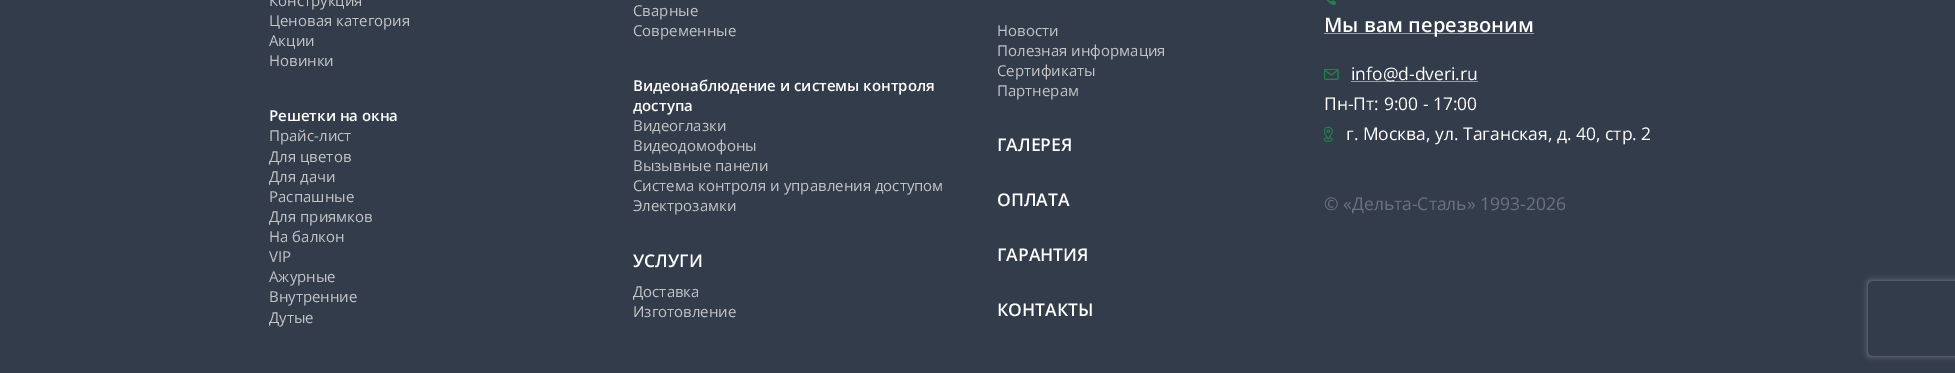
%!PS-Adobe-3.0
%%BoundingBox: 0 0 1955 373
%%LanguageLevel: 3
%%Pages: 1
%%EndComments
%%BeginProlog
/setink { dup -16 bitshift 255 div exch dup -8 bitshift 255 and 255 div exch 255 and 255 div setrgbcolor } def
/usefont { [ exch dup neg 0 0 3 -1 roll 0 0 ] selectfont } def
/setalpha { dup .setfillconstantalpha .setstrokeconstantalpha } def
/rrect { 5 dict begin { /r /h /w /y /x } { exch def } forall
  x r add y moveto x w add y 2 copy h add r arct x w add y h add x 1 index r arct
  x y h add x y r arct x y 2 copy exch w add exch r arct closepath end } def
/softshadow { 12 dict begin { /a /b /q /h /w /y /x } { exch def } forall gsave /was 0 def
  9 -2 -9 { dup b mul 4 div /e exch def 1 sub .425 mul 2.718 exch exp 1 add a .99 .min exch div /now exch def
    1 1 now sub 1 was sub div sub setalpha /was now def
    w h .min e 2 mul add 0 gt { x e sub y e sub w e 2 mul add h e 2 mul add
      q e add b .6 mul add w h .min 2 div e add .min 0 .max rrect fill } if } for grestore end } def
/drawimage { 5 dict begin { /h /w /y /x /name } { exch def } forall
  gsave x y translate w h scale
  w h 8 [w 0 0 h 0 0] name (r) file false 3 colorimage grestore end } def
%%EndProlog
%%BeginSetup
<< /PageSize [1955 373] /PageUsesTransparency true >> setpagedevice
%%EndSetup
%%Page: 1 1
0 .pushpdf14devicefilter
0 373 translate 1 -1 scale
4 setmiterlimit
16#323C4B setink
0 0 1955 373 rectfill
/OpenSans-Regular 15 usefont
16#C4C4C4 setink
[
    [(Конструкция) 269 6]
    [(Ценовая категория) 269 26]
    [(Акции) 269 46]
    [(Новинки) 269 66]
    [(Сварные) 633 16]
    [(Современные) 633 36]
    [(Прайс-лист) 269 141]
    [(Для цветов) 269 162]
    [(Для дачи) 269 182]
    [(Распашные) 269 202]
    [(Для приямков) 269 222]
    [(На балкон) 269 242]
    [(VIP) 269 262]
    [(Ажурные) 269 282]
    [(Внутренние) 269 302]
    [(Дутые) 269 323]
] { aload pop moveto show } forall
/OpenSans-SemiBold 15 usefont
16#FFFFFF setink
[
    [(Решетки на окна) 269 121]
    [(Видеонаблюдение и системы контроля) 633 91]
    [(доступа) 633 111]
] { aload pop moveto show } forall
/OpenSans-Regular 15 usefont
16#C4C4C4 setink
[
    [(Видеоглазки) 633 131]
    [(Видеодомофоны) 633 151]
    [(Вызывные панели) 633 171]
    [(Система контроля и управления доступом) 633 191]
    [(Электрозамки) 633 211]
    [(Новости) 997 36]
    [(Полезная информация) 997 56]
    [(Сертификаты) 997 76]
    [(Партнерам) 997 96]
] { aload pop moveto show } forall
/OpenSans-SemiBold 17.5 usefont
16#FFFFFF setink
[
    [(ГАЛЕРЕЯ) 997 151]
    [(ОПЛАТА) 997 206]
    [(УСЛУГИ) 633 267]
] { aload pop moveto show } forall
/OpenSans-Regular 15 usefont
16#C4C4C4 setink
633 297 moveto (Доставка) show
633 317 moveto (Изготовление) show
/OpenSans-SemiBold 17.5 usefont
16#FFFFFF setink
997 261 moveto (ГАРАНТИЯ) show
997 316 moveto (КОНТАКТЫ) show
(img1.raw) 1326 0 10 5 drawimage
16#999EA5 setink
1324 33 210 1 rectfill
/OpenSans-SemiBold 20 usefont
16#FFFFFF setink
1324 32 moveto (Мы вам перезвоним) show
(img2.raw) 1324 69 15 11 drawimage
16#999EA5 setink
1351 81 127 1 rectfill
/OpenSans-Regular 17.5 usefont
16#FFFFFF setink
1351 80 moveto (info@d-dveri.ru) show
1324 110 moveto (Пн-Пт: 9:00 - 17:00) show
(img3.raw) 1324 126 9 16 drawimage
1346 140 moveto (г. Москва, ул. Таганская, д. 40, стр. 2) show
16#6C727B setink
1324 210 moveto (© «Дельта-Сталь» 1993-2026) show
gsave
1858 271 moveto 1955 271 lineto 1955 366 lineto 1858 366 lineto closepath 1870.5 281 moveto 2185.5 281 lineto 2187 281 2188 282 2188 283.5 curveto 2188 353.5 lineto 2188 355 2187 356 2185.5 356 curveto 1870.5 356 lineto 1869 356 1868 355 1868 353.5 curveto 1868 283.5 lineto 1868 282 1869 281 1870.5 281 curveto closepath eoclip newpath
16#808080 setink
1868 281 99 75 2.5 3 1 softshadow
grestore
.poppdf14devicefilter showpage
%%EOF
